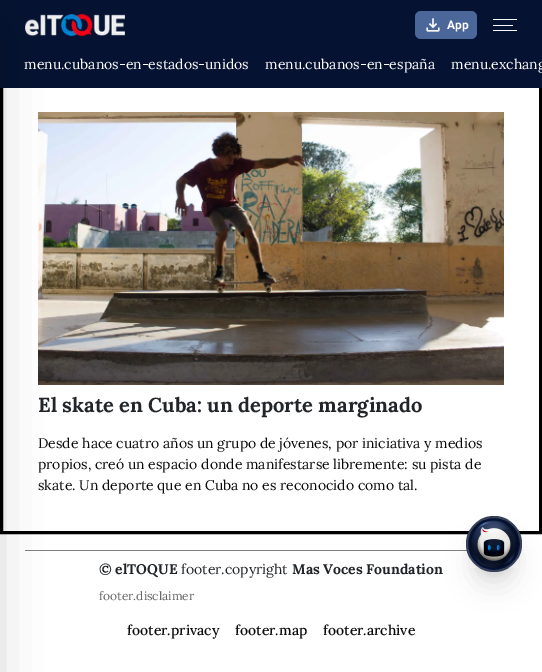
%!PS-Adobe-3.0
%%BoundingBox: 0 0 542 672
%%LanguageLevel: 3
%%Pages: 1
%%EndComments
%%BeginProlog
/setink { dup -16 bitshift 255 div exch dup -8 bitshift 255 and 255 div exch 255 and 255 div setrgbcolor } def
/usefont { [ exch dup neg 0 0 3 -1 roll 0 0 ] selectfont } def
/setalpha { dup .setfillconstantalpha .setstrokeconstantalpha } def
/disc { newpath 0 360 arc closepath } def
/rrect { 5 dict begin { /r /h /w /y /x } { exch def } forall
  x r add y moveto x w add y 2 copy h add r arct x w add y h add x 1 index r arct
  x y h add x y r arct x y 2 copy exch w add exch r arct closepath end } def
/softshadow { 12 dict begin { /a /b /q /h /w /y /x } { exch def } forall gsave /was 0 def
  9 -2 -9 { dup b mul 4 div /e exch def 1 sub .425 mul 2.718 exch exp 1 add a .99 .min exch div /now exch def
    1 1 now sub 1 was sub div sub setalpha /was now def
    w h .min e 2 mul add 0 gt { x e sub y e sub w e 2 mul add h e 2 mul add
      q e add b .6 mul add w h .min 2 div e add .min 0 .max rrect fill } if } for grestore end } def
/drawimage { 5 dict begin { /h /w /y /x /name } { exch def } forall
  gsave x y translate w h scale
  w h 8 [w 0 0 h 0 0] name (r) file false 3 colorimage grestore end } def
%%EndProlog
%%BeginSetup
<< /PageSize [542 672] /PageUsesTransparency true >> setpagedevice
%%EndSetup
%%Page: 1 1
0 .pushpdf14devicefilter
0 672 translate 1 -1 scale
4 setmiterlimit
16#FFFFFF setink
0 0 542 672 rectfill
(img3.raw) 38 112 466 273 drawimage
16#000000 setink
3 setlinewidth
1.5 75.5 539 457 rectstroke
16#051231 setink
0 0 542 88 rectfill
(img1.raw) 25 14 100 22 drawimage
16#808080 setink
25 550 442 1 rectfill
16#000000 setink
-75 37 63 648 0 25 0.25 softshadow
16#4B6799 setink
415 11 62 28 6 rrect fill
(img2.raw) 426 18 14 14 drawimage
/Roboto-Bold 12 usefont
16#FFFFFF setink
447 29 moveto (App) show
16#FAFAFA setink
493 19 24 1 0.5 rrect fill
493 25 20 1 0.5 rrect fill
493 30 24 1 0.5 rrect fill
/Lora-Regular 14 usefont
16#FFFFFF setink
[
    [(menu.cubanos-en-estados-unidos) 24 69]
    [(menu.cubanos-en-españa) 265 69]
    [(menu.exchang) 451 69]
] { aload pop moveto show } forall
/Lora-Bold 20.2 usefont
16#212529 setink
38 412 moveto (El skate en Cuba: un deporte marginado) show
/Lora-Regular 14 usefont
16#0A0A0A setink
[
    [(Desde hace cuatro años un grupo de jóvenes, por iniciativa y medios) 38 448]
    [(propios, creó un espacio donde manifestarse libremente: su pista de) 38 469]
    [(skate. Un deporte que en Cuba no es reconocido como tal.) 38 490]
] { aload pop moveto show } forall
/Lora-Bold 14 usefont
16#212529 setink
99 574 moveto (© elTOQUE) show
/Lora-Regular 14 usefont
181 574 moveto (footer.copyright) show
/Lora-Bold 14 usefont
292 574 moveto (Mas Voces Foundation) show
/Lora-Regular 12 usefont
16#666666 setink
99 600 moveto (footer.disclaimer) show
/Lora-Medium 14 usefont
16#0A0A0A setink
[
    [(footer.privacy) 127 635]
    [(footer.map) 235 635]
    [(footer.archive) 323 635]
] { aload pop moveto show } forall
16#000000 setink
472 530 44 44 22 5 0.1 softshadow
471 541 46 46 23 12.5 0.1 softshadow
16#051231 setink
494 544 28 disc fill
0.2 setalpha
16#FFFFFF setink
2 setlinewidth
494 544 27 disc stroke
1 setalpha
(img4.raw) 470 520 48 48 drawimage
.poppdf14devicefilter showpage
%%EOF
